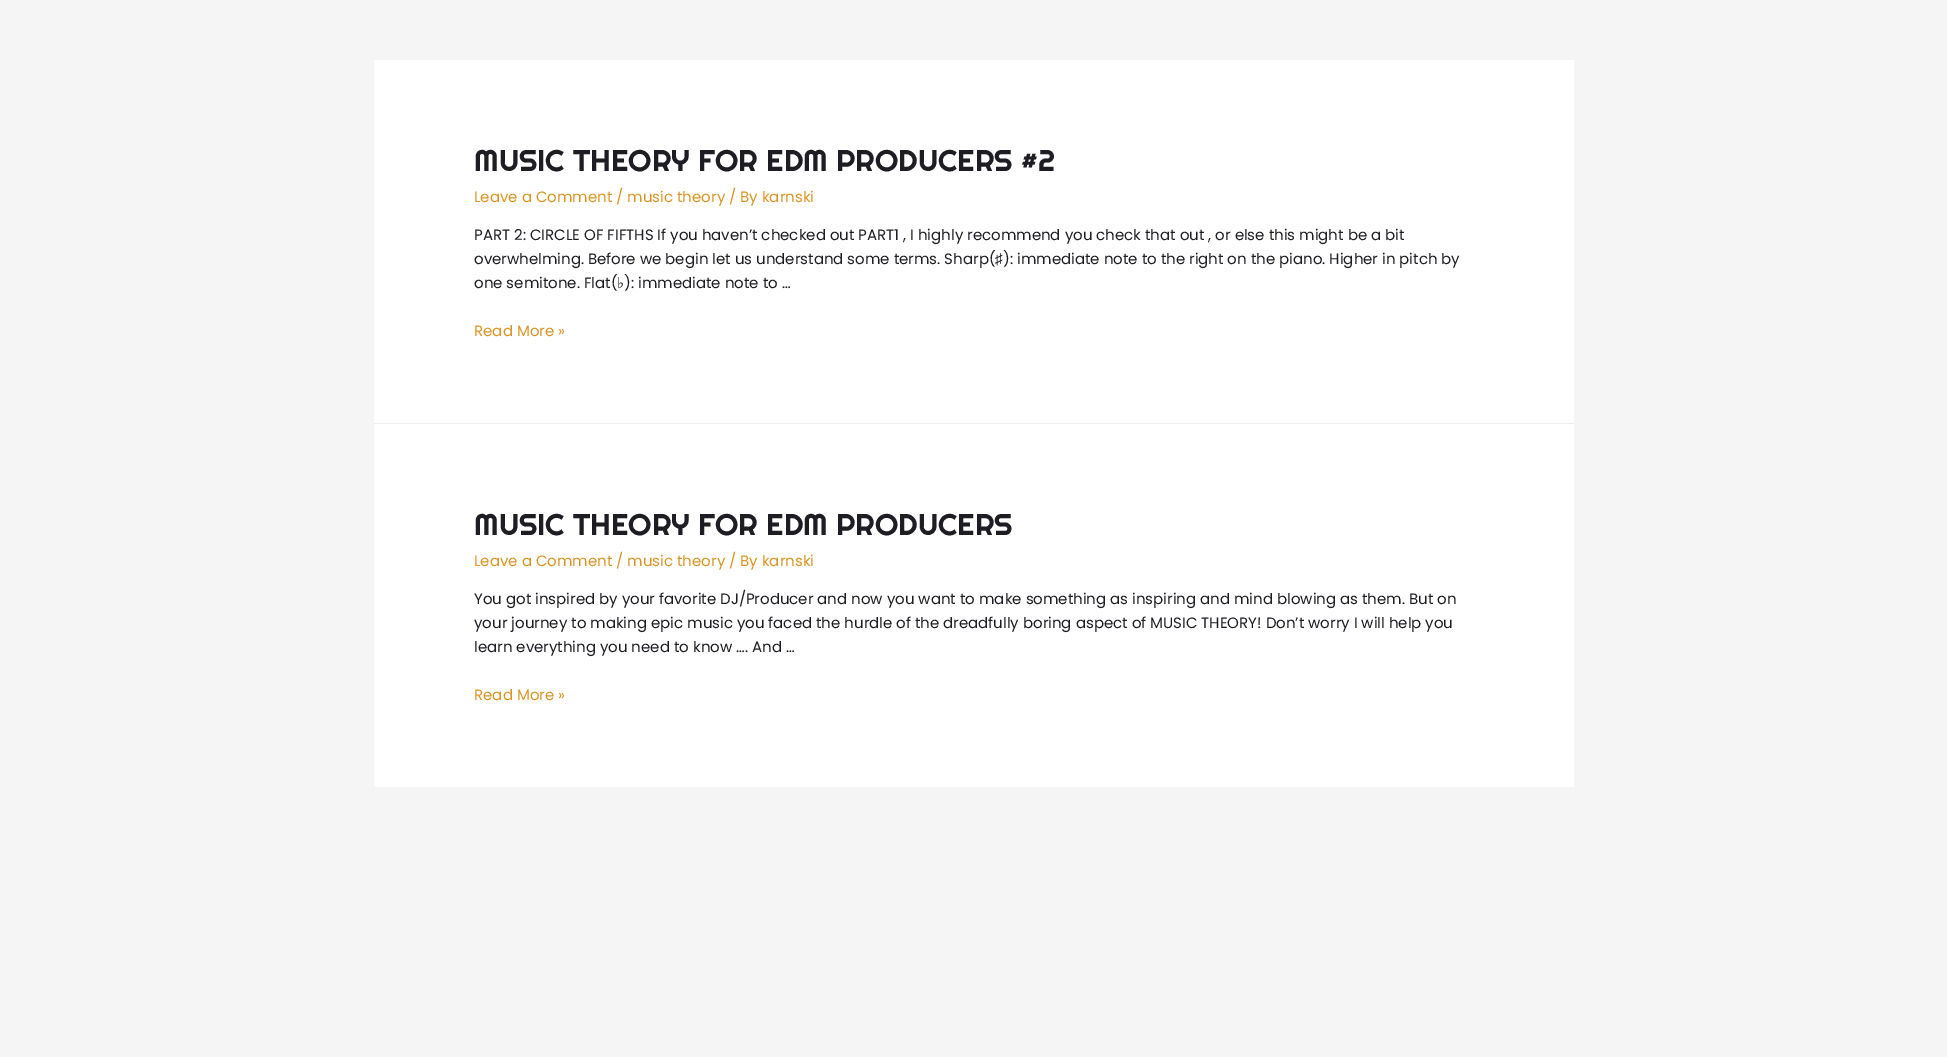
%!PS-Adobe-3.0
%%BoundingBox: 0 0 1947 1057
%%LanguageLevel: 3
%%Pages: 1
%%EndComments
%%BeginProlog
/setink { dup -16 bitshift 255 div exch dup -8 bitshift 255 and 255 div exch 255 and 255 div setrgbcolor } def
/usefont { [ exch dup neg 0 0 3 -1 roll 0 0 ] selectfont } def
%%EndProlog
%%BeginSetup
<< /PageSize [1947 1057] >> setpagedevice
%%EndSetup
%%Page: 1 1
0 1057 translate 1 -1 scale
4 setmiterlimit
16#F5F5F5 setink
0 0 1947 1057 rectfill
16#FFFFFF setink
374 60 1200 363 rectfill
16#EEEEEE setink
374 423 1200 1 rectfill
/Righteous-Regular 30 usefont
16#1D1D23 setink
474 171 moveto (MUSIC THEORY FOR EDM PRODUCERS #2) show
/Poppins-Regular 15 usefont
16#DB9423 setink
474 202 moveto (Leave a Comment / music theory / By karnski) show
16#1D1D23 setink
474 240 moveto (PART 2: CIRCLE OF FIFTHS If you haven’t checked out PART1 , I highly recommend you check that out , or else this might be a bit) show
474 264 moveto (overwhelming. Before we begin let us understand some terms. Sharp\() show
/LiberationSans-Regular 15 usefont
995 264 moveto (♯) show
/Poppins-Regular 15 usefont
1003 264 moveto (\): immediate note to the right on the piano. Higher in pitch by) show
474 288 moveto (one semitone. Flat\() show
/DejaVuSans-Regular 15 usefont
617 288 moveto (♭) show
/Poppins-Regular 15 usefont
624 288 moveto (\): immediate note to …) show
16#DB9423 setink
474 336 moveto (Read More ») show
16#FFFFFF setink
374 424 1200 363 rectfill
/Righteous-Regular 30 usefont
16#1D1D23 setink
474 535 moveto (MUSIC THEORY FOR EDM PRODUCERS) show
/Poppins-Regular 15 usefont
16#DB9423 setink
474 566 moveto (Leave a Comment / music theory / By karnski) show
16#1D1D23 setink
[
    [(You got inspired by your favorite DJ/Producer and now you want to make something as inspiring and mind blowing as them. But on) 474 604]
    [(your journey to making epic music you faced the hurdle of the dreadfully boring aspect of MUSIC THEORY! Don’t worry I will help you) 474 628]
    [(learn everything you need to know …. And …) 474 652]
] { aload pop moveto show } forall
16#DB9423 setink
474 700 moveto (Read More ») show
showpage
%%EOF
